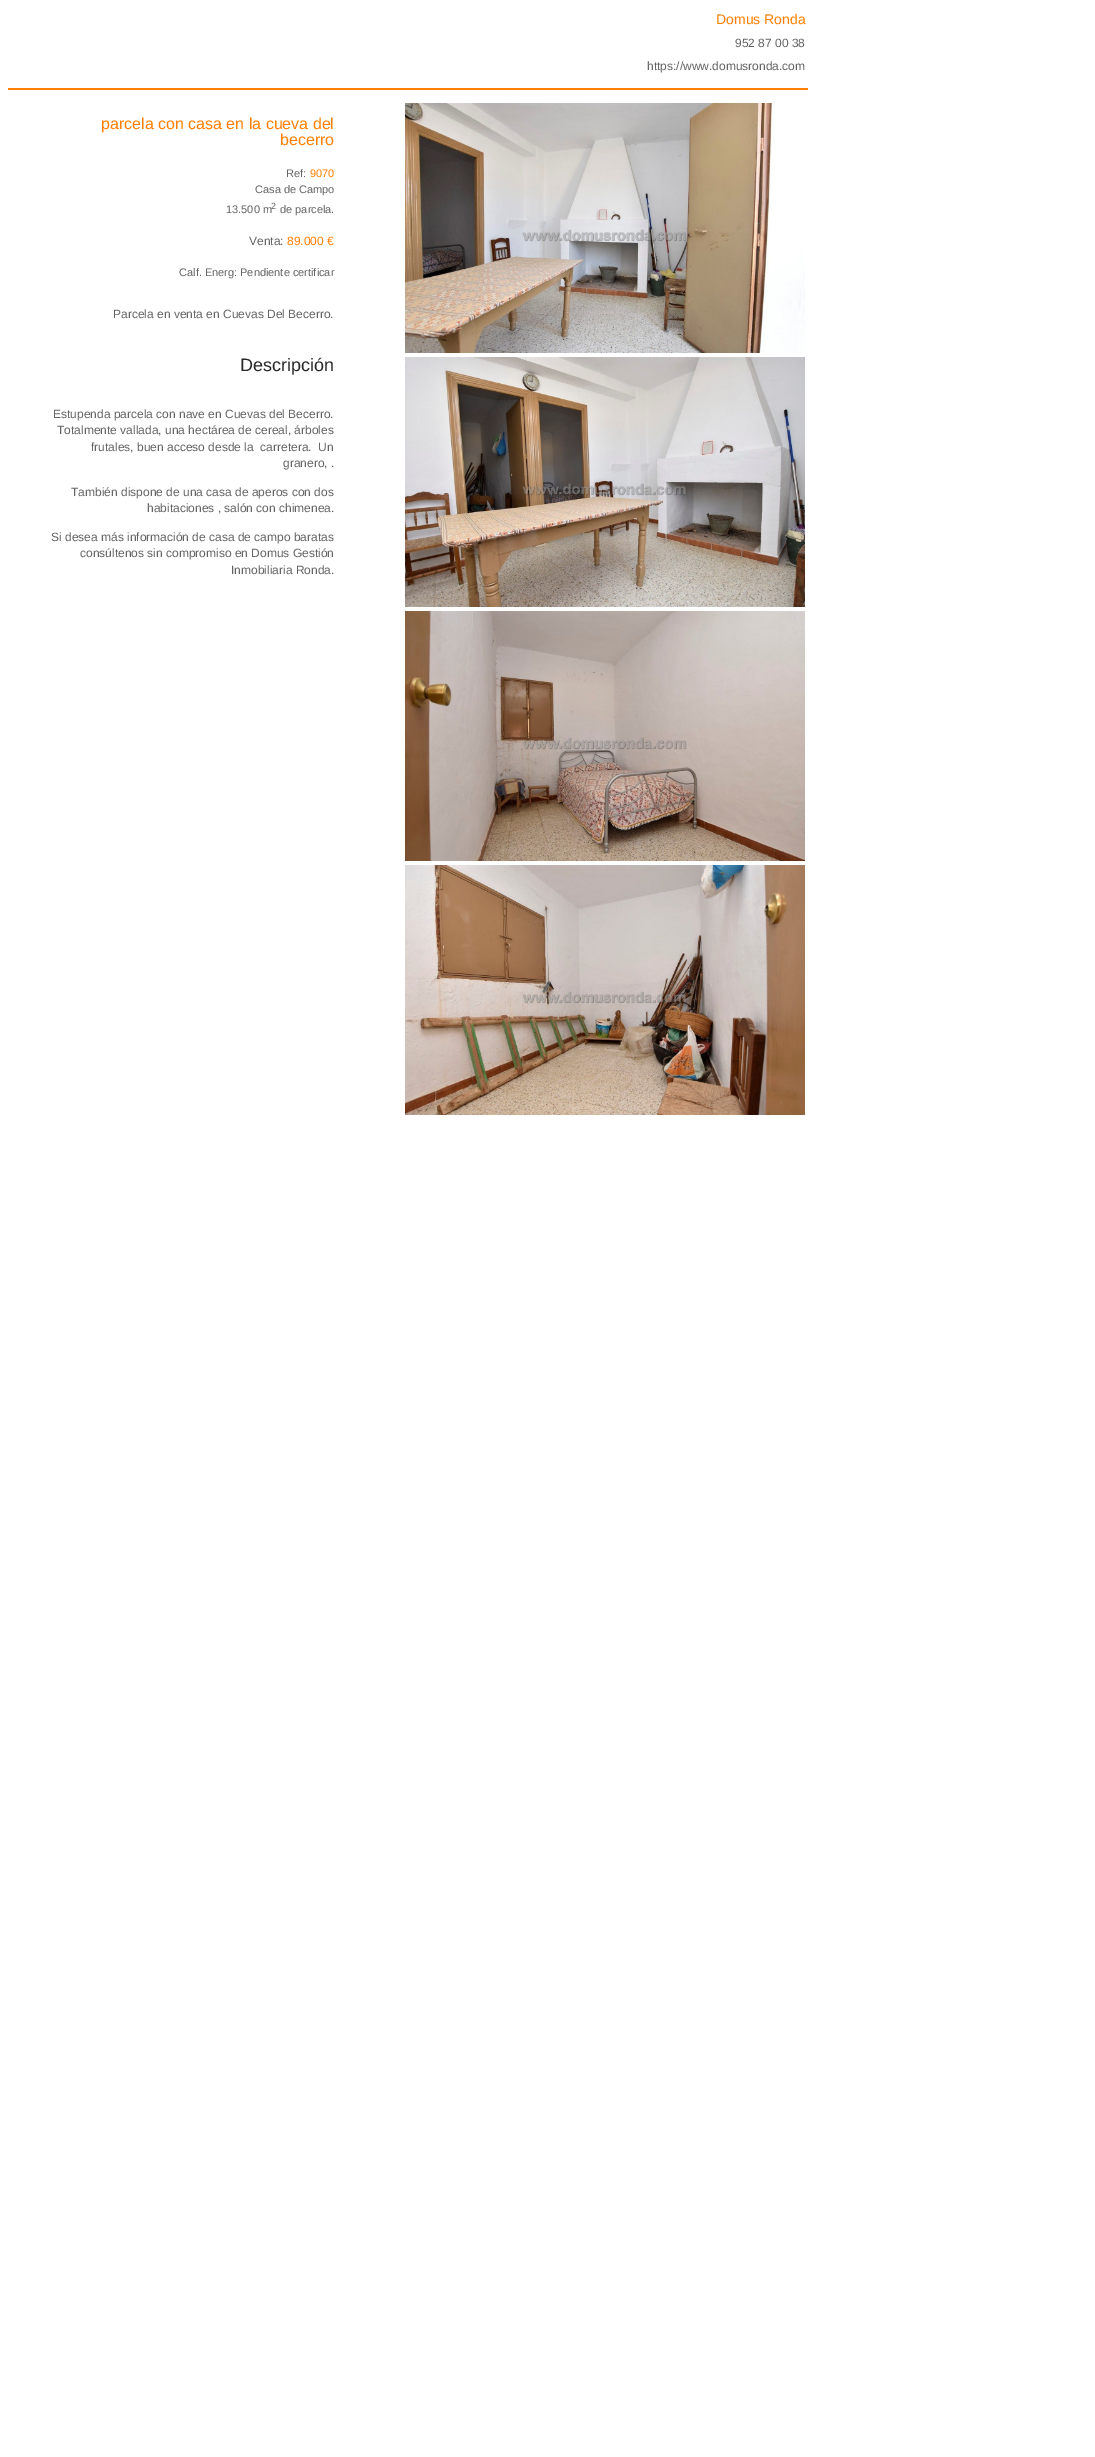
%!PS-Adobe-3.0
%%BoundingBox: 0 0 1095 2457
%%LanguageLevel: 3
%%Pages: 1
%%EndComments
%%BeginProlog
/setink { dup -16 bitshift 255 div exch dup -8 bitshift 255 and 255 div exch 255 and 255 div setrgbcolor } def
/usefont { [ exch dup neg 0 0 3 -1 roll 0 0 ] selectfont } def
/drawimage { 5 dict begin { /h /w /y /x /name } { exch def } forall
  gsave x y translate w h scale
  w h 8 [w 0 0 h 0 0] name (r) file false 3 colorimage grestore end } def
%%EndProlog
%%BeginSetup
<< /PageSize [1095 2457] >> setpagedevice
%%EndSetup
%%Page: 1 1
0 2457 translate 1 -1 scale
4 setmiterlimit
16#FFFFFF setink
0 0 1095 2457 rectfill
/LiberationSans-Regular 14 usefont
16#FF7F00 setink
716 24 moveto (Domus Ronda) show
/LiberationSans-Regular 12 usefont
16#646464 setink
735 47 moveto (952 87 00 38) show
647 70 moveto (https://www.domusronda.com) show
16#FF7F00 setink
8 88 800 2 rectfill
/LiberationSans-Regular 16 usefont
101 129 moveto (parcela con casa en la cueva del) show
280 145 moveto (becerro) show
/LiberationSans-Regular 11 usefont
16#646464 setink
286 177 moveto (Ref:) show
16#FF7F00 setink
310 177 moveto (9070) show
16#646464 setink
255 193 moveto (Casa de Campo) show
226 213 moveto (13.500 m) show
/LiberationSans-Regular 9 usefont
271 209 moveto (2) show
/LiberationSans-Regular 11 usefont
280 213 moveto (de parcela.) show
/LiberationSans-Regular 12 usefont
249 245 moveto (Venta:) show
16#FF7F00 setink
287 245 moveto (89.000 €) show
/LiberationSans-Regular 11 usefont
16#646464 setink
179 276 moveto (Calf. Energ: Pendiente certificar) show
/LiberationSans-Regular 12 usefont
113 318 moveto (Parcela en venta en Cuevas Del Becerro.) show
/LiberationSans-Regular 18 usefont
16#292929 setink
240 371 moveto (Descripción) show
/LiberationSans-Regular 12 usefont
16#646464 setink
[
    [(Estupenda parcela con nave en Cuevas del Becerro.) 53 418]
    [(Totalmente vallada, una hectárea de cereal, árboles) 57 434]
    [(frutales, buen acceso desde la  carretera.  Un) 91 451]
    [(granero, .) 283 467]
    [(También dispone de una casa de aperos con dos) 71 496]
    [(habitaciones , salón con chimenea.) 147 512]
    [(Si desea más información de casa de campo baratas) 51 541]
    [(consúltenos sin compromiso en Domus Gestión) 80 557]
    [(Inmobiliaria Ronda.) 231 574]
] { aload pop moveto show } forall
(img1.raw) 405 103 400 250 drawimage
(img2.raw) 405 357 400 250 drawimage
(img3.raw) 405 611 400 250 drawimage
(img4.raw) 405 865 400 250 drawimage
showpage
%%EOF
